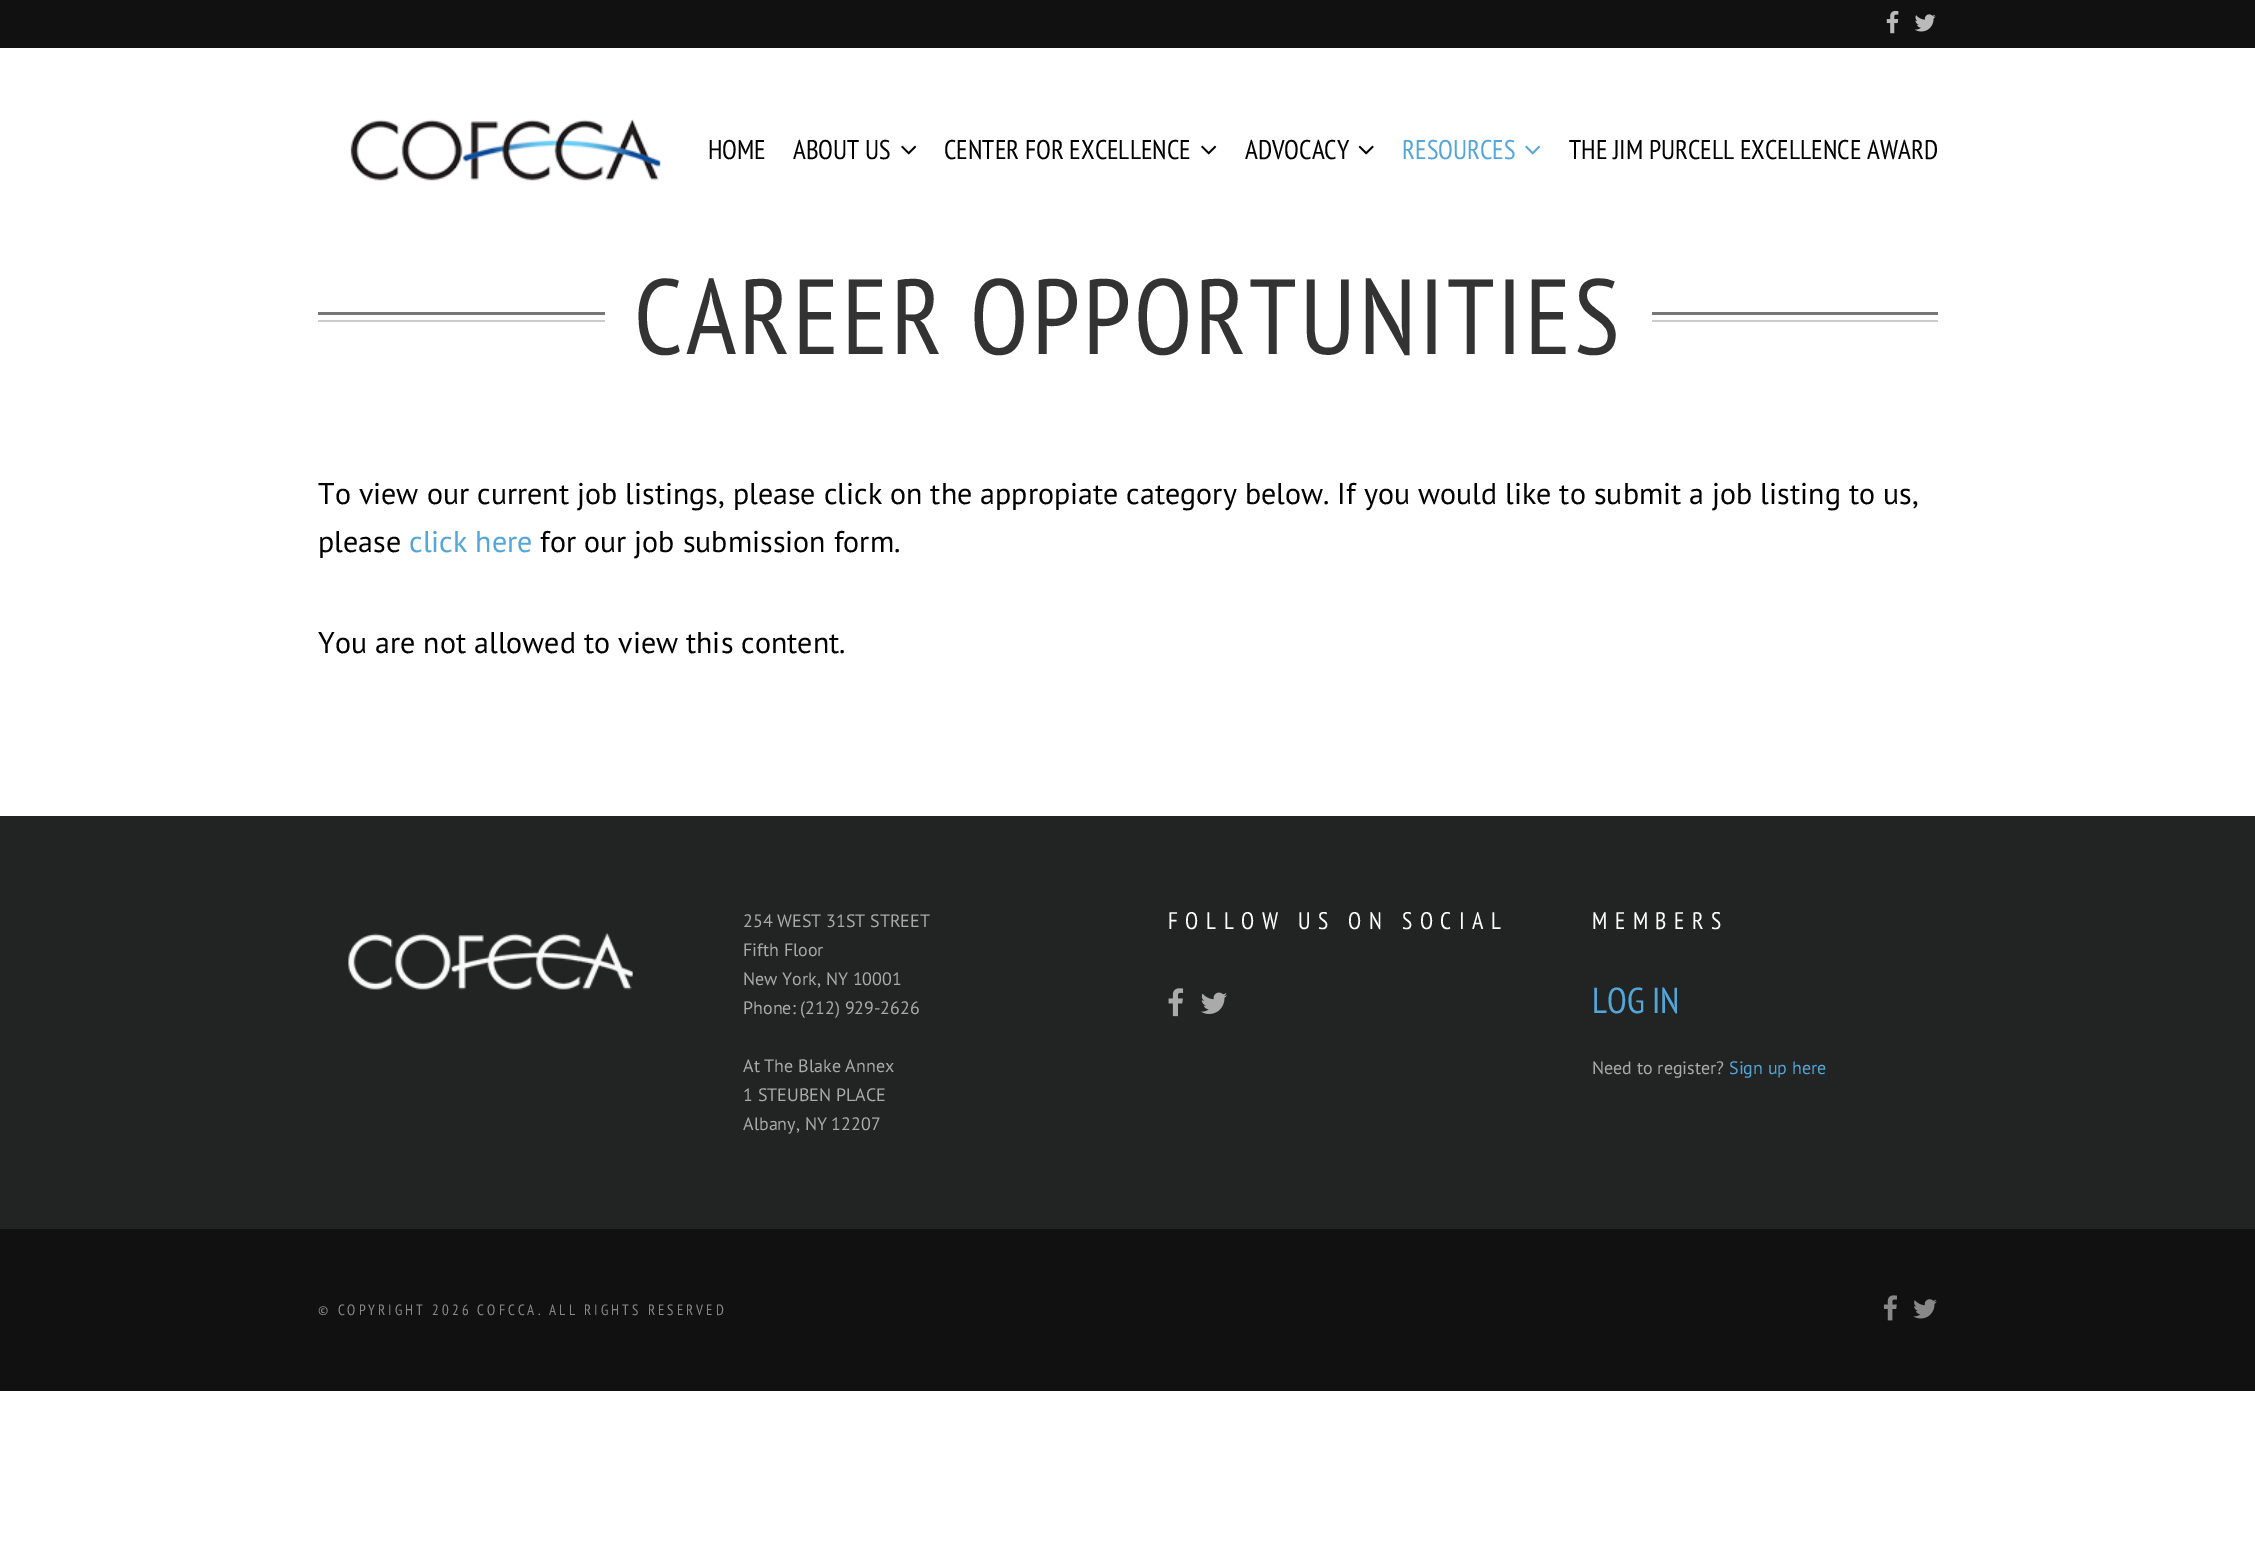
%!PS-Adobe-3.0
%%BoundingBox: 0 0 2255 1551
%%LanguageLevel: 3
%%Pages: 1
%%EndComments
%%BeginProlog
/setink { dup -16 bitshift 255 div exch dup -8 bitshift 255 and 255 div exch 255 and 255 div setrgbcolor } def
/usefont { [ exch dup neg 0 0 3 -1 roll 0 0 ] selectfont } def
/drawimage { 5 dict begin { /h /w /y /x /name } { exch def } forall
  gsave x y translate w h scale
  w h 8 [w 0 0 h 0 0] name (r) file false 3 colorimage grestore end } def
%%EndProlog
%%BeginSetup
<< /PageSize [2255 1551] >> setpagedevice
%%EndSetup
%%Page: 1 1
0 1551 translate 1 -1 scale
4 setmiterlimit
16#FFFFFF setink
0 0 2255 1551 rectfill
16#111111 setink
0 0 2255 48 rectfill
(img1.raw) 1886 10 13 24 drawimage
(img2.raw) 1914 14 22 18 drawimage
(img3.raw) 350 119 311 62 drawimage
/PTSansNarrow-Regular 27 usefont
16#000000 setink
708 159 moveto (HOME) show
793 159 moveto (ABOUT US) show
(img4.raw) 901 145 16 10 drawimage
944 159 moveto (CENTER FOR EXCELLENCE) show
(img4.raw) 1201 145 16 10 drawimage
1245 159 moveto (ADVOCACY) show
(img5.raw) 1358 145 16 10 drawimage
16#53A6D9 setink
1402 159 moveto (RESOURCES) show
(img6.raw) 1525 145 16 10 drawimage
16#000000 setink
1569 159 moveto (THE JIM PURCELL EXCELLENCE AWARD) show
16#777777 setink
318 312 287 3 rectfill
16#CCCCCC setink
318 320 287 2 rectfill
/PTSansNarrow-Regular 106.5 usefont
16#333333 setink
634 354 moveto 3 0 (CAREER OPPORTUNITIES) ashow
16#777777 setink
1652 312 286 3 rectfill
16#CCCCCC setink
1652 320 286 2 rectfill
/PTSans-Regular 30 usefont
16#000000 setink
318 504 moveto (To view our current job listings, please click on the appropiate category below. If you would like to submit a job listing to us,) show
318 552 moveto (please) show
16#53A6D9 setink
409 552 moveto (click here) show
16#000000 setink
540 552 moveto (for our job submission form.) show
318 653 moveto (You are not allowed to view this content.) show
16#222323 setink
0 816 2255 413 rectfill
(img7.raw) 348 933 285 57 drawimage
/PTSans-Regular 18 usefont
16#AAAAAA setink
[
    [(254 WEST 31ST STREET) 743 927]
    [(Fifth Floor) 743 956]
    [(New York, NY 10001) 743 985]
    [(Phone: \(212\) 929-2626) 743 1014]
    [(At The Blake Annex) 743 1072]
    [(1 STEUBEN PLACE) 743 1101]
    [(Albany, NY 12207) 743 1130]
] { aload pop moveto show } forall
/PTSansNarrow-Regular 24 usefont
16#FFFFFF setink
1168 929 moveto 7.5 0 (FOLLOW US ON SOCIAL) ashow
(img8.raw) 1168 988 16 29 drawimage
(img9.raw) 1201 992 26 22 drawimage
1592 929 moveto 7.5 0 (MEMBERS) ashow
/PTSansNarrow-Regular 36 usefont
16#53A6D9 setink
1592 1013 moveto (LOG IN) show
/PTSans-Regular 18 usefont
16#AAAAAA setink
1592 1074 moveto (Need to register?) show
16#53A6D9 setink
1729 1074 moveto (Sign up here) show
16#111111 setink
0 1229 2255 162 rectfill
/PTSansNarrow-Regular 15 usefont
16#888888 setink
318 1315 moveto 3 0 (© COPYRIGHT 2026 COFCCA. ALL RIGHTS RESERVED) ashow
(img10.raw) 1883 1295 14 26 drawimage
(img11.raw) 1913 1299 24 20 drawimage
showpage
%%EOF
